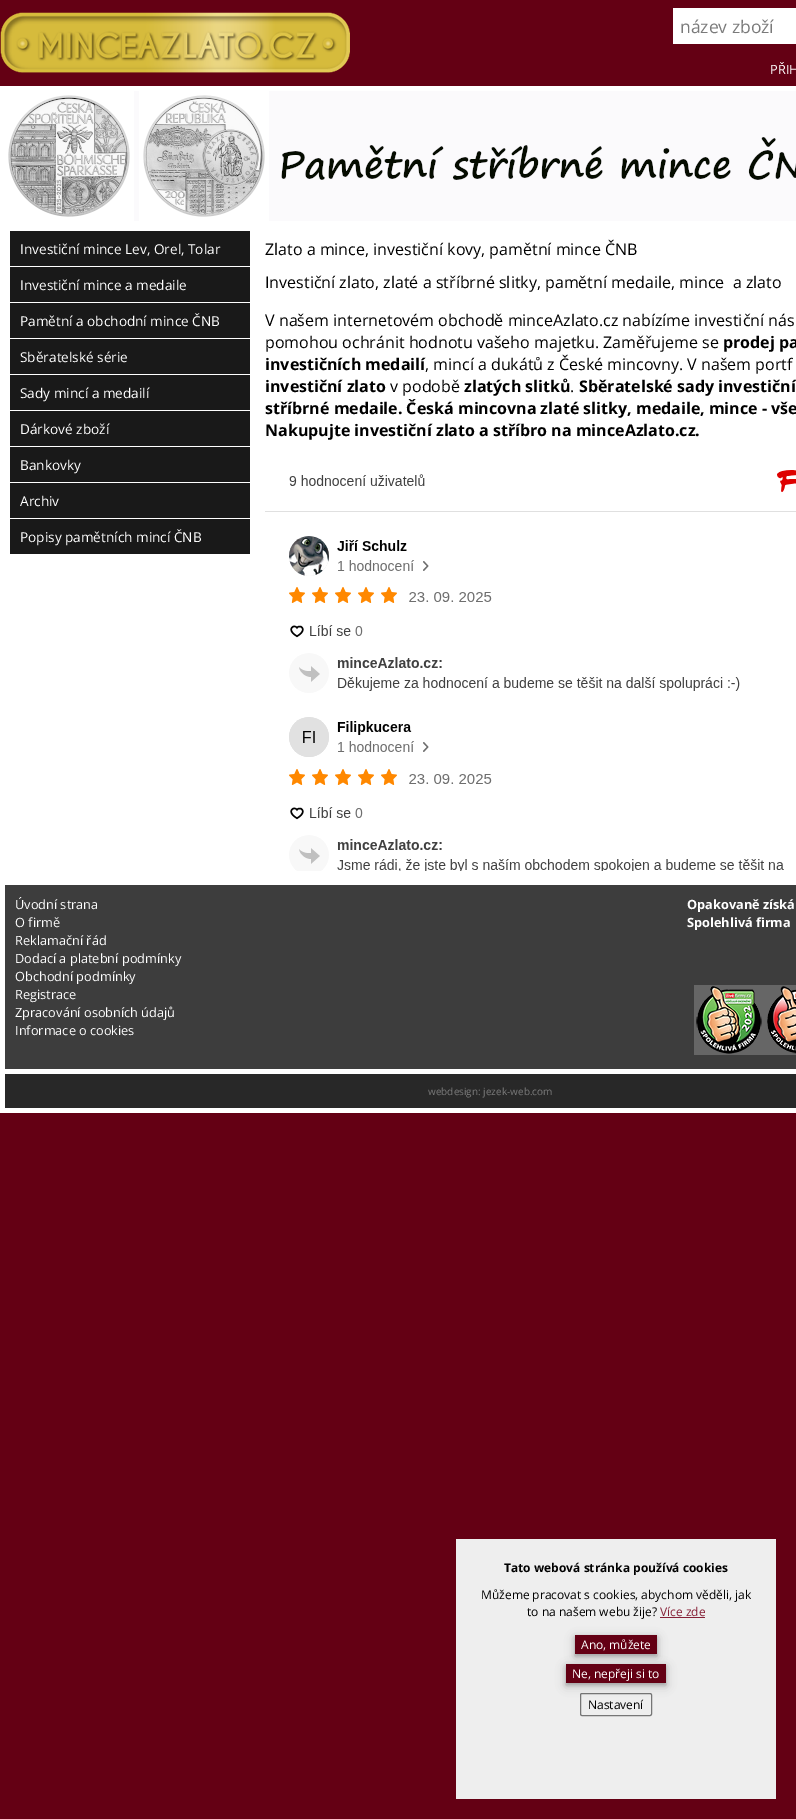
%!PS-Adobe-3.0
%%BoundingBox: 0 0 796 1819
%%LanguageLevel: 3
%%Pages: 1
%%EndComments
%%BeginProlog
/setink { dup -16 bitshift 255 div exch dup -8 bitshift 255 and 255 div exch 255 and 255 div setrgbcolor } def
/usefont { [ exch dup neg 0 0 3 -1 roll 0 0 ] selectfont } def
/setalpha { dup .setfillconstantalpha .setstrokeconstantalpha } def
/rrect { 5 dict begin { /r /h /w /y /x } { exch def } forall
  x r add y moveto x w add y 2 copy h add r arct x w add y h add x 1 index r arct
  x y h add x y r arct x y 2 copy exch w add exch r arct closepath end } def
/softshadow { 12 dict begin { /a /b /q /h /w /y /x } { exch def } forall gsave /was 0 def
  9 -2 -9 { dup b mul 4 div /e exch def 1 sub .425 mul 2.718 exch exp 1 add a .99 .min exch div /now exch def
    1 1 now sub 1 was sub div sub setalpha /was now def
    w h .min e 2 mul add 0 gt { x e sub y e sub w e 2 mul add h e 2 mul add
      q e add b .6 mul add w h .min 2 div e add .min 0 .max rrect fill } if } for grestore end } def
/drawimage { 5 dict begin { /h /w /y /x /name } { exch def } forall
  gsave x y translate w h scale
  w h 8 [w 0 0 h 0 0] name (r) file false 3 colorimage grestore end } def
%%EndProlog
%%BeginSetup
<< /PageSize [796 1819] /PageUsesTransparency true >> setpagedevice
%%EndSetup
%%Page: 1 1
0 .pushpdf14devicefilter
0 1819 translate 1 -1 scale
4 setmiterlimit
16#640014 setink
0 0 796 1819 rectfill
(img1.raw) 0 12 350 61 drawimage
16#FFFFFF setink
673 8 123 36 rectfill
/OpenSans-Regular 17.5 usefont
16#7A7A7A setink
680 33 moveto (název zboží) show
/OpenSans-Regular 12.75 usefont
16#FFFFFF setink
770 74 moveto (PŘIH) show
0 86 796 1027 rectfill
(img2.raw) 8 91 788 130 drawimage
16#191919 setink
10 231 240 35 rectfill
/OpenSans-Regular 13.6 usefont
16#FFFFFF setink
20 254 moveto (Investiční mince Lev, Orel, Tolar) show
16#191919 setink
10 267 240 35 rectfill
16#FFFFFF setink
20 290 moveto (Investiční mince a medaile) show
16#191919 setink
10 303 240 35 rectfill
16#FFFFFF setink
20 326 moveto (Pamětní a obchodní mince ČNB) show
16#191919 setink
10 339 240 35 rectfill
16#FFFFFF setink
20 362 moveto (Sběratelské série) show
16#191919 setink
10 375 240 35 rectfill
16#FFFFFF setink
20 398 moveto (Sady mincí a medailí) show
16#191919 setink
10 411 240 35 rectfill
16#FFFFFF setink
20 434 moveto (Dárkové zboží) show
16#191919 setink
10 447 240 35 rectfill
16#FFFFFF setink
20 470 moveto (Bankovky) show
16#191919 setink
10 483 240 35 rectfill
16#FFFFFF setink
20 506 moveto (Archiv) show
16#191919 setink
10 519 240 35 rectfill
16#FFFFFF setink
20 542 moveto (Popisy pamětních mincí ČNB) show
/OpenSans-Regular 16 usefont
16#000000 setink
[
    [(Zlato a mince, investiční kovy, pamětní mince ČNB) 265 255]
    [(Investiční zlato, zlaté a stříbrné slitky, pamětní medaile, mince  a zlato) 265 288]
    [(V našem internetovém obchodě minceAzlato.cz nabízíme investiční nás) 265 326]
    [(pomohou ochránit hodnotu vašeho majetku. Zaměřujeme se) 265 348]
] { aload pop moveto show } forall
/OpenSans-Bold 16 usefont
723 348 moveto (prodej pa) show
265 370 moveto (investičních medailí) show
/OpenSans-Regular 16 usefont
425 370 moveto (, mincí a dukátů z České mincovny. V našem portf) show
/OpenSans-Bold 16 usefont
265 392 moveto (investiční zlato) show
/OpenSans-Regular 16 usefont
390 392 moveto (v podobě) show
/OpenSans-Bold 16 usefont
464 392 moveto (zlatých slitků) show
/OpenSans-Regular 16 usefont
570 392 moveto (.) show
/OpenSans-Bold 16 usefont
[
    [(Sběratelské sady investiční) 579 392]
    [(stříbrné medaile. Česká mincovna zlaté slitky, medaile, mince - vše) 265 414]
    [(Nakupujte investiční zlato a stříbro na minceAzlato.cz.) 265 436]
] { aload pop moveto show } forall
(img3.raw) 265 470 531 401 drawimage
16#3D3D3D setink
5 885 791 184 rectfill
/OpenSans-Regular 12.75 usefont
16#FFFFFF setink
[
    [(Úvodní strana) 15 909]
    [(O firmě) 15 927]
    [(Reklamační řád) 15 945]
    [(Dodací a platební podmínky) 15 963]
    [(Obchodní podmínky) 15 981]
    [(Registrace) 15 999]
    [(Zpracování osobních údajů) 15 1017]
    [(Informace o cookies) 15 1035]
] { aload pop moveto show } forall
/OpenSans-Bold 12.75 usefont
687 909 moveto (Opakovaně získá) show
687 927 moveto (Spolehlivá firma) show
(img4.raw) 694 985 102 70 drawimage
16#282828 setink
5 1074 791 34 rectfill
/OpenSans-Regular 10 usefont
16#7A7A7A setink
428 1095 moveto (webdesign: jezek-web.com) show
16#EEEEEE setink
456 1539 320 260 rectfill
/OpenSans-Bold 12 usefont
16#000000 setink
504 1572 moveto (Tato webová stránka používá cookies) show
/OpenSans-Regular 12 usefont
481 1599 moveto (Můžeme pracovat s cookies, abychom věděli, jak) show
527 1616 moveto (to na našem webu žije?) show
16#862037 setink
660 1616 moveto (Více zde) show
660 1617 45 1 rectfill
16#000000 setink
575 1638 82 19 0 5 0.19 softshadow
575 1637 82 19 0 2 0.2 softshadow
16#640014 setink
575 1635 82 19 rectfill
16#FFFFFF setink
581 1649 moveto (Ano, můžete) show
16#767676 setink
580.5 1693.5 71 22 1.5 rrect stroke
16#000000 setink
566 1667 100 19 0 5 0.19 softshadow
566 1666 100 19 0 2 0.2 softshadow
16#640014 setink
566 1664 100 19 rectfill
16#FFFFFF setink
572 1678 moveto (Ne, nepřeji si to) show
16#000000 setink
588 1709 moveto (Nastavení) show
.poppdf14devicefilter showpage
%%EOF
